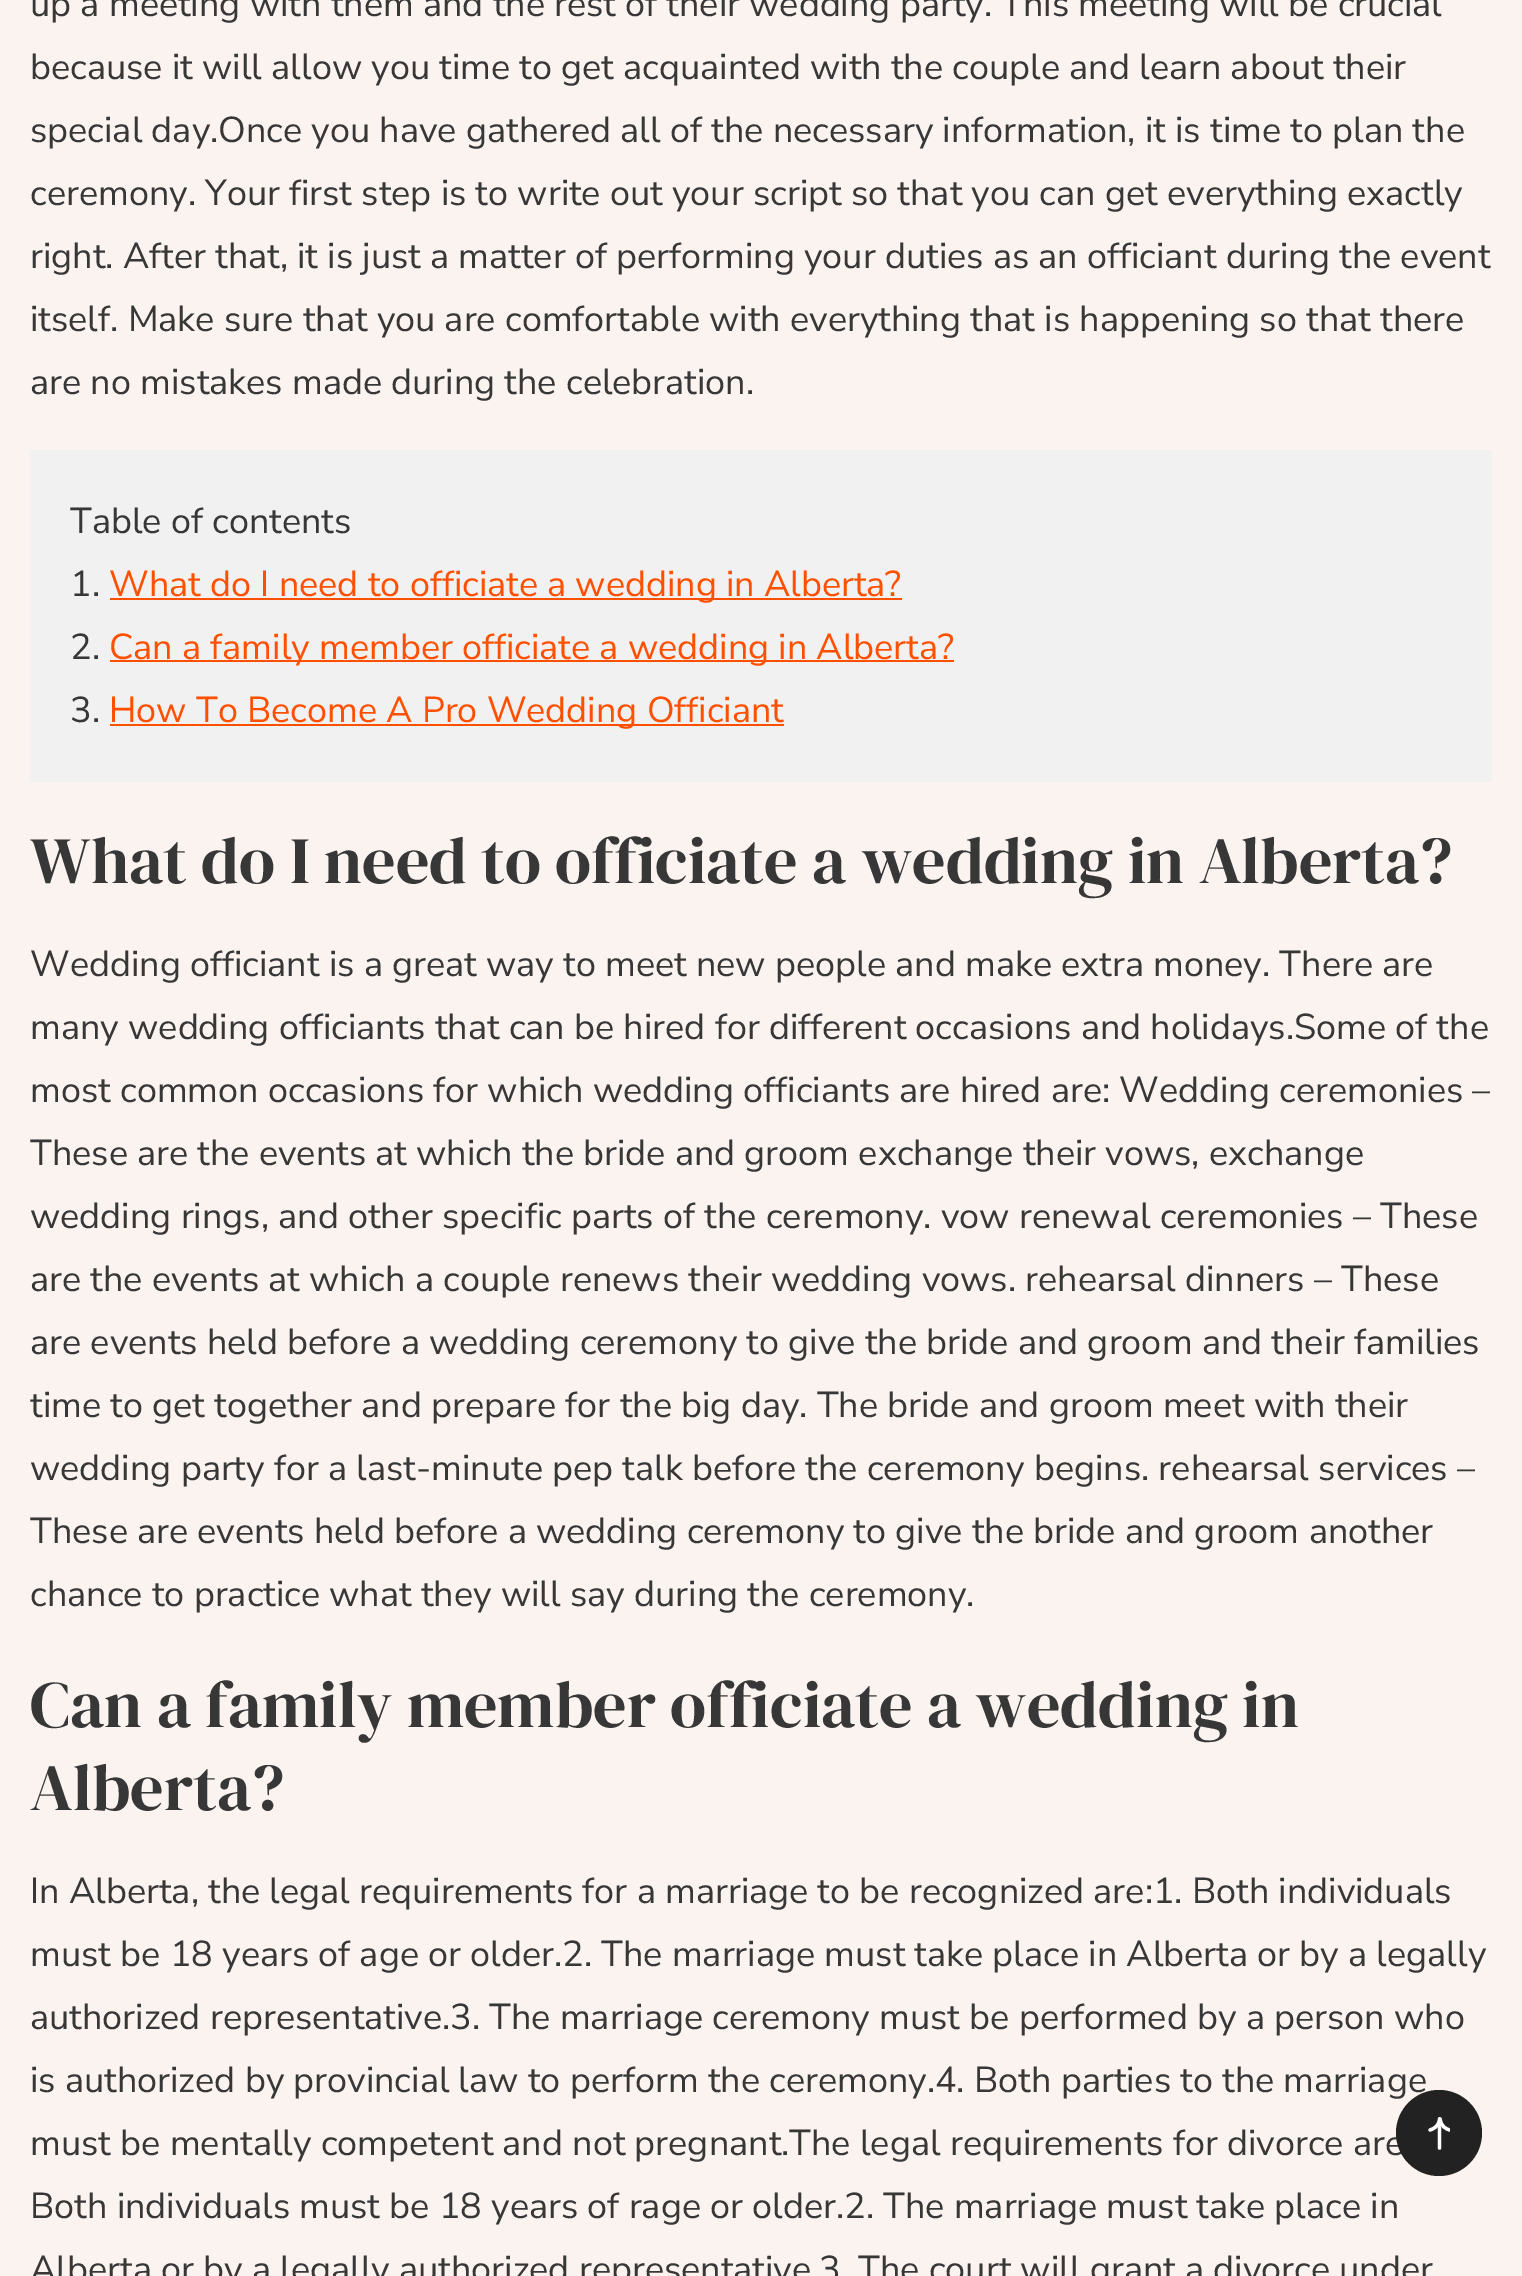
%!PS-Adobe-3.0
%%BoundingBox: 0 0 1522 2276
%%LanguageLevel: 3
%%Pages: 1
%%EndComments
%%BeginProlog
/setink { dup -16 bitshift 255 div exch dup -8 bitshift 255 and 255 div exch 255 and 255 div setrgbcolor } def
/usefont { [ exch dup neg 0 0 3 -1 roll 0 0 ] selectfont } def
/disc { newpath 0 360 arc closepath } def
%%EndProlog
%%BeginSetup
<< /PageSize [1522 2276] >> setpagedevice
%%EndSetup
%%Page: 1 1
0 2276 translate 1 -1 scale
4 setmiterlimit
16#FBF3F0 setink
0 0 1522 2276 rectfill
/NunitoSans-Regular 36 usefont
16#383737 setink
[
    [(up a meeting with them and the rest of their wedding party. This meeting will be crucial) 30 16]
    [(because it will allow you time to get acquainted with the couple and learn about their) 30 79]
    [(special day.Once you have gathered all of the necessary information, it is time to plan the) 30 142]
    [(ceremony. Your first step is to write out your script so that you can get everything exactly) 30 205]
    [(right. After that, it is just a matter of performing your duties as an officiant during the event) 30 268]
    [(itself. Make sure that you are comfortable with everything that is happening so that there) 30 331]
    [(are no mistakes made during the celebration.) 30 394]
] { aload pop moveto show } forall
16#F2F1F2 setink
30 450 1462 332 rectfill
16#383737 setink
70 533 moveto (Table of contents) show
70 596 moveto (1.) show
16#FF5000 setink
110 598 792 2 rectfill
109 596 moveto (What do I need to officiate a wedding in Alberta?) show
16#383737 setink
70 659 moveto (2.) show
16#FF5000 setink
110 660 844 2 rectfill
109 659 moveto (Can a family member officiate a wedding in Alberta?) show
16#383737 setink
70 722 moveto (3.) show
16#FF5000 setink
110 724 674 2 rectfill
109 722 moveto (How To Become A Pro Wedding Officiant) show
/DMSerifDisplay-Regular 66 usefont
16#383737 setink
30 883 moveto (What do I need to officiate a wedding in Alberta?) show
/NunitoSans-Regular 36 usefont
[
    [(Wedding officiant is a great way to meet new people and make extra money. There are) 30 976]
    [(many wedding officiants that can be hired for different occasions and holidays.Some of the) 30 1039]
    [(most common occasions for which wedding officiants are hired are: Wedding ceremonies –) 30 1102]
    [(These are the events at which the bride and groom exchange their vows, exchange) 30 1165]
    [(wedding rings, and other specific parts of the ceremony. vow renewal ceremonies – These) 30 1228]
    [(are the events at which a couple renews their wedding vows. rehearsal dinners – These) 30 1291]
    [(are events held before a wedding ceremony to give the bride and groom and their families) 30 1354]
    [(time to get together and prepare for the big day. The bride and groom meet with their) 30 1417]
    [(wedding party for a last-minute pep talk before the ceremony begins. rehearsal services –) 30 1480]
    [(These are events held before a wedding ceremony to give the bride and groom another) 30 1543]
    [(chance to practice what they will say during the ceremony.) 30 1606]
] { aload pop moveto show } forall
/DMSerifDisplay-Regular 66 usefont
30 1727 moveto (Can a family member officiate a wedding in) show
30 1810 moveto (Alberta?) show
/NunitoSans-Regular 36 usefont
[
    [(In Alberta, the legal requirements for a marriage to be recognized are:1. Both individuals) 30 1903]
    [(must be 18 years of age or older.2. The marriage must take place in Alberta or by a legally) 30 1966]
    [(authorized representative.3. The marriage ceremony must be performed by a person who) 30 2029]
    [(is authorized by provincial law to perform the ceremony.4. Both parties to the marriage) 30 2092]
    [(must be mentally competent and not pregnant.The legal requirements for divorce are) 30 2155]
    [(Both individuals must be 18 years of rage or older.2. The marriage must take place in) 30 2218]
    [(Alberta or by a legally authorized representative.3. The court will grant a divorce under) 30 2281]
] { aload pop moveto show } forall
16#222222 setink
1439 2133 43 disc fill
16#FFFFFF setink
3.3 setlinewidth
1 setlinecap
1430 2130 moveto 1434 2128.5 1438 2127 1440 2119 curveto stroke
gsave
1428 2116 22 34 rectclip
1449.5 2130 moveto 1445.5 2128.5 1441.5 2127 1440 2119 curveto stroke
grestore
1439.5 2148 moveto 1439.5 2119 lineto stroke
showpage
%%EOF
